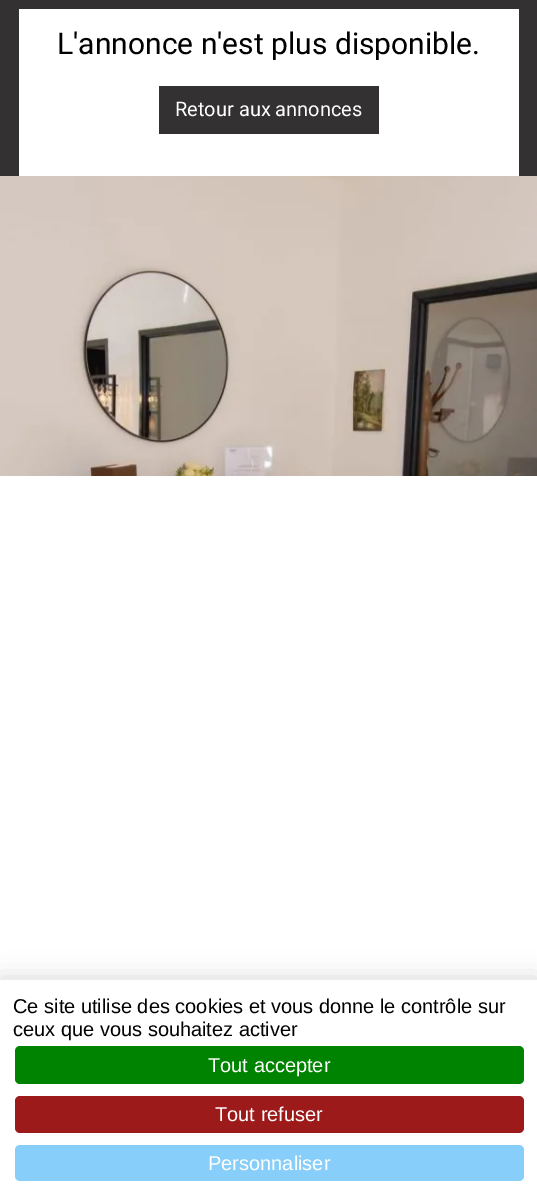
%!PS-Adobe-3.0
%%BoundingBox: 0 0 537 1199
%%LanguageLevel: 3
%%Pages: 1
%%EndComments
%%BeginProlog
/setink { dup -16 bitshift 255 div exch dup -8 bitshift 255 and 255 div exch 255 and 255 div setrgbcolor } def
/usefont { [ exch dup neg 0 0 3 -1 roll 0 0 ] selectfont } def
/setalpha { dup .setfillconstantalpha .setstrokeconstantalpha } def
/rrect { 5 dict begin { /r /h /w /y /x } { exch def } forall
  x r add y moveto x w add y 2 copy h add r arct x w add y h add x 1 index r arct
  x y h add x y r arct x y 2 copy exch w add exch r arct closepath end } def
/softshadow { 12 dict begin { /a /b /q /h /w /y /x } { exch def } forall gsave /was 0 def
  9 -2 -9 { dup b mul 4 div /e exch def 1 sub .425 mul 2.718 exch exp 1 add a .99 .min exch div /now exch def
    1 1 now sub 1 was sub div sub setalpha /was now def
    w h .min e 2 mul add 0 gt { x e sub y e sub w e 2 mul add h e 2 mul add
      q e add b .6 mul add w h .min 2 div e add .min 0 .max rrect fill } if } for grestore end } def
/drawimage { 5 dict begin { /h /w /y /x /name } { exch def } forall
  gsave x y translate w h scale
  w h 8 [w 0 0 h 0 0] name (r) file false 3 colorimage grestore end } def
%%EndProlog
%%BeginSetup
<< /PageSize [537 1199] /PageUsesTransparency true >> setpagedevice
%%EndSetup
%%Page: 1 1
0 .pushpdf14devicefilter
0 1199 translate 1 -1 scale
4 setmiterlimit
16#FFFFFF setink
0 0 537 1199 rectfill
16#333132 setink
0 0 537 176 rectfill
16#FFFFFF setink
19 9 500 167 rectfill
/Roboto-Regular 30 usefont
16#000000 setink
57 54 moveto (L'annonce n'est plus disponible.) show
16#333132 setink
159 86 220 48 rectfill
/Roboto-Regular 20 usefont
16#FFFFFF setink
175 116 moveto (Retour aux annonces) show
(img1.raw) 0 176 537 300 drawimage
16#808080 setink
0 978 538 220 0 12.5 0.3 softshadow
16#FFFFFF setink
0 980 537 219 rectfill
/LiberationSans-Regular 20 usefont
16#000000 setink
13 1013 moveto (Ce site utilise des cookies et vous donne le contrôle sur) show
13 1036 moveto (ceux que vous souhaitez activer) show
16#008300 setink
15 1046 509 38 5 rrect fill
16#FFFFFF setink
208 1072 moveto (Tout accepter) show
16#9C1A1A setink
15 1096 509 37 5 rrect fill
16#FFFFFF setink
215 1121 moveto (Tout refuser) show
16#87CEFA setink
15 1145 509 36 5 rrect fill
16#FFFFFF setink
208 1170 moveto (Personnaliser) show
.poppdf14devicefilter showpage
%%EOF
